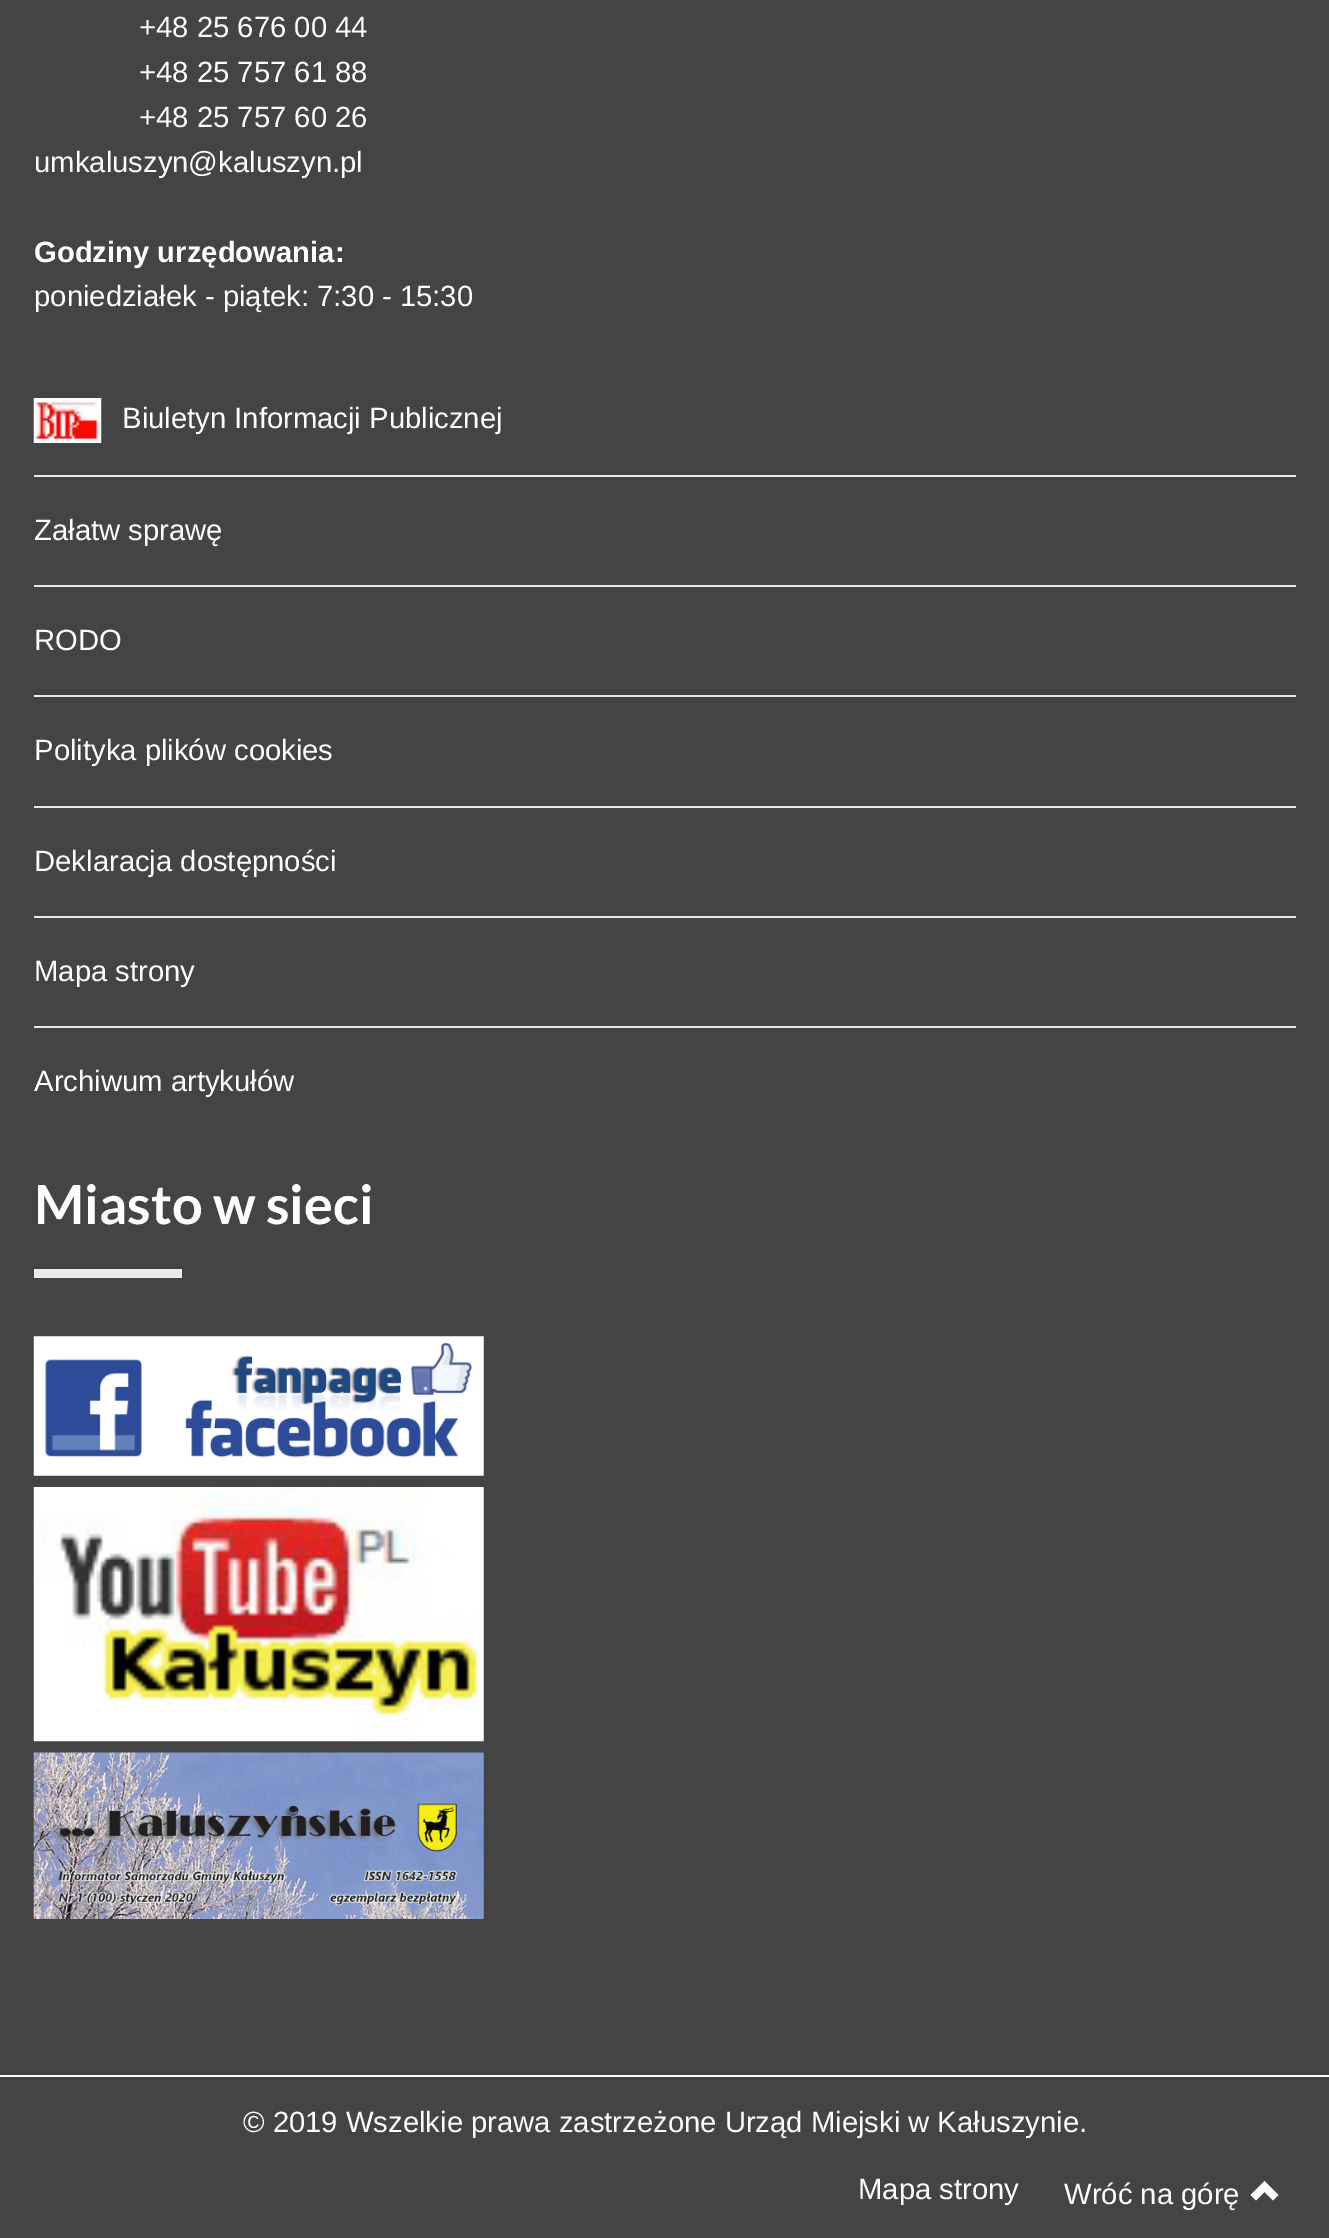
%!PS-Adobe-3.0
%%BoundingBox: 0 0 1329 2238
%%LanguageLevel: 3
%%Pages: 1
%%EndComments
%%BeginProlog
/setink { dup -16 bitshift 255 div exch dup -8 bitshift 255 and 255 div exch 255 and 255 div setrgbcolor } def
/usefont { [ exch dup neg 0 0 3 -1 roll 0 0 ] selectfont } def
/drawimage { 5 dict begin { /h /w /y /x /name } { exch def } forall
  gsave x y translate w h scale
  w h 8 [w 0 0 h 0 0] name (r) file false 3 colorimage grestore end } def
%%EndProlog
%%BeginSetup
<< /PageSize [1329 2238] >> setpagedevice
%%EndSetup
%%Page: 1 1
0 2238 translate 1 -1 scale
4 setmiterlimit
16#444444 setink
0 0 1329 2238 rectfill
/LiberationSans-Regular 29.25 usefont
16#FFFEFE setink
[
    [(+48 25 676 00 44) 139 37]
    [(+48 25 757 61 88) 139 82]
    [(+48 25 757 60 26) 139 127]
    [(umkaluszyn@kaluszyn.pl) 34 172]
] { aload pop moveto show } forall
/LiberationSans-Bold 29.25 usefont
34 262 moveto (Godziny urzędowania:) show
/LiberationSans-Regular 29.25 usefont
34 306 moveto (poniedziałek - piątek: 7:30 - 15:30) show
(img1.raw) 33 398 69 45 drawimage
122 428 moveto (Biuletyn Informacji Publicznej) show
16#EBEAEA setink
34 475 1262 2 rectfill
16#FFFEFE setink
34 540 moveto (Załatw sprawę) show
16#EBEAEA setink
34 585 1262 2 rectfill
16#FFFEFE setink
34 650 moveto (RODO) show
16#EBEAEA setink
34 695 1262 2 rectfill
16#FFFEFE setink
34 760 moveto (Polityka plików cookies) show
16#EBEAEA setink
34 806 1262 2 rectfill
16#FFFEFE setink
34 871 moveto (Deklaracja dostępności) show
16#EBEAEA setink
34 916 1262 2 rectfill
16#FFFEFE setink
34 981 moveto (Mapa strony) show
16#EBEAEA setink
34 1026 1262 2 rectfill
16#FFFEFE setink
34 1091 moveto (Archiwum artykułów) show
/Lato-Bold 54 usefont
34 1224 moveto (Miasto w sieci) show
16#EBEAEA setink
34 1269 148 9 rectfill
(img2.raw) 33 1336 451 140 drawimage
(img3.raw) 33 1487 451 255 drawimage
(img4.raw) 33 1752 451 167 drawimage
16#FFFFFF setink
0 2075 1329 2 rectfill
/LiberationSans-Regular 29.25 usefont
16#FFFEFE setink
[
    [(© 2019 Wszelkie prawa zastrzeżone Urząd Miejski w Kałuszynie.) 243 2132]
    [(Mapa strony) 858 2199]
    [(Wróć na górę) 1064 2204]
] { aload pop moveto show } forall
1250.5 2195 moveto 1256 2200.5 lineto 1264.5 2192 lineto 1273 2200.5 lineto 1278.5 2195 lineto 1264.5 2181 lineto closepath fill
showpage
%%EOF
